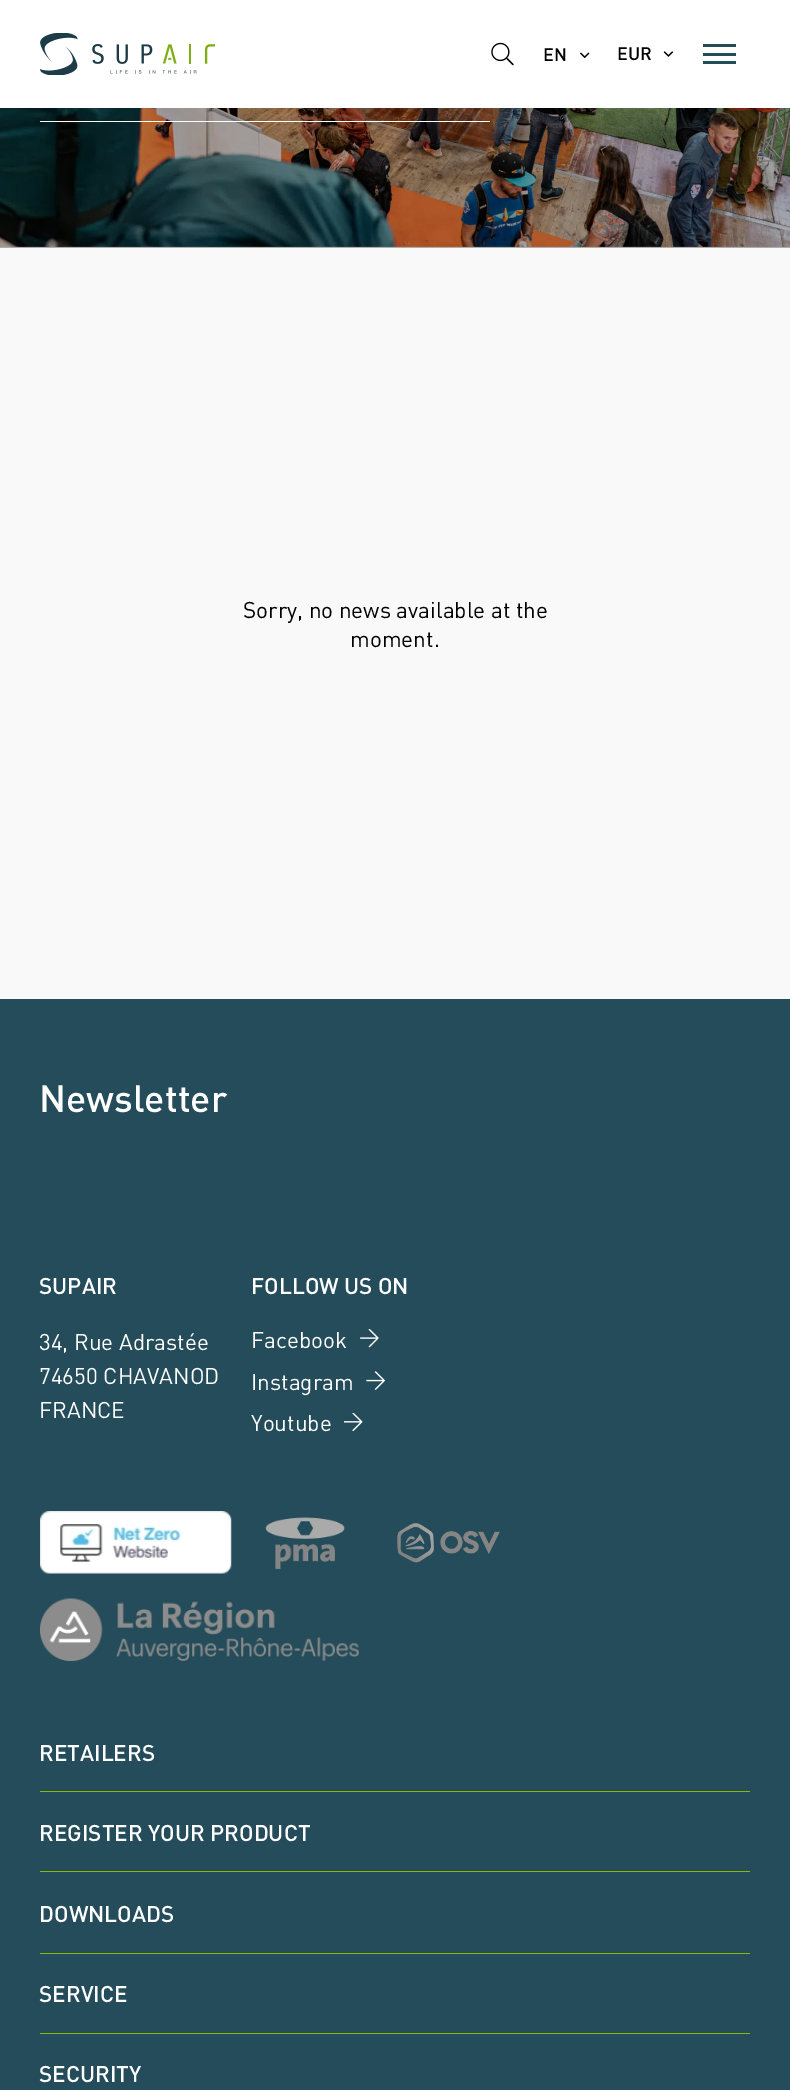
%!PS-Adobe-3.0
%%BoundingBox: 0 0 790 2090
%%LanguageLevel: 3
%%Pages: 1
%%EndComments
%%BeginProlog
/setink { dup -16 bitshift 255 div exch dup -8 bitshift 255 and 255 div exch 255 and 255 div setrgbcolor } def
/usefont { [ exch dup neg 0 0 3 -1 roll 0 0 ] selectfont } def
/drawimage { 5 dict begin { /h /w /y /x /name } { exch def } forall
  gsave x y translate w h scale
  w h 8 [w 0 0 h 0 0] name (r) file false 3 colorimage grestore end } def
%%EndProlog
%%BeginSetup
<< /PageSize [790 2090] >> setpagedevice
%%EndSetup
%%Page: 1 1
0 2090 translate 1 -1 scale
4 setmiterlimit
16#F9F9F9 setink
0 0 790 2090 rectfill
16#AEAEAE setink
0 246 790 2 rectfill
16#FFFFFF setink
0 0 790 108 rectfill
(img1.raw) 40 33 175 42 drawimage
(img2.raw) 491 42 23 24 drawimage
/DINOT-Medium 18 usefont
16#000000 setink
543 61 moveto (EN) show
(img3.raw) 580 52 10 7 drawimage
617 60 moveto (EUR) show
(img4.raw) 663 51 11 6 drawimage
[
    [703 44 33 3 16#244C5A]
    [703 53 33 3 16#244C5A]
    [703 61 33 3 16#244C5A]
] { aload pop setink rectfill } forall
(img5.raw) 0 108 790 139 drawimage
16#FFFFFF setink
40 121 450 1 rectfill
/DINOT-Regular 22.5 usefont
16#000000 setink
243 618 moveto (Sorry, no news available at the) show
350 647 moveto (moment.) show
16#244C5A setink
0 999 790 1091 rectfill
/DINOT-Medium 37.5 usefont
16#FFFFFF setink
39 1112 moveto (Newsletter) show
/DINOT-Medium 22.5 usefont
39 1294 moveto (SUPAIR) show
/DINOT-Regular 22.5 usefont
[
    [(34, Rue Adrastée) 39 1350]
    [(74650 CHAVANOD) 39 1384]
    [(FRANCE) 39 1418]
] { aload pop moveto show } forall
/DINOT-Medium 22.5 usefont
251 1294 moveto (FOLLOW US ON) show
/DINOT-Regular 22.5 usefont
251 1348 moveto (Facebook) show
(img6.raw) 360 1329 19 19 drawimage
251 1390 moveto (Instagram) show
(img7.raw) 366 1371 19 19 drawimage
251 1431 moveto (Youtube) show
(img8.raw) 344 1413 19 18 drawimage
(img9.raw) 40 1511 192 63 drawimage
(img10.raw) 265 1517 80 52 drawimage
(img11.raw) 397 1523 103 40 drawimage
(img12.raw) 40 1598 319 63 drawimage
16#84BD00 setink
40 1791 710 1 rectfill
/DINOT-Medium 22.5 usefont
16#FFFFFF setink
39 1761 moveto (RETAILERS) show
16#84BD00 setink
40 1871 710 1 rectfill
16#FFFFFF setink
39 1841 moveto (REGISTER YOUR PRODUCT) show
16#84BD00 setink
40 1953 710 1 rectfill
16#FFFFFF setink
39 1922 moveto (DOWNLOADS) show
16#84BD00 setink
40 2033 710 1 rectfill
16#FFFFFF setink
39 2002 moveto (SERVICE) show
39 2082 moveto (SECURITY) show
showpage
%%EOF
